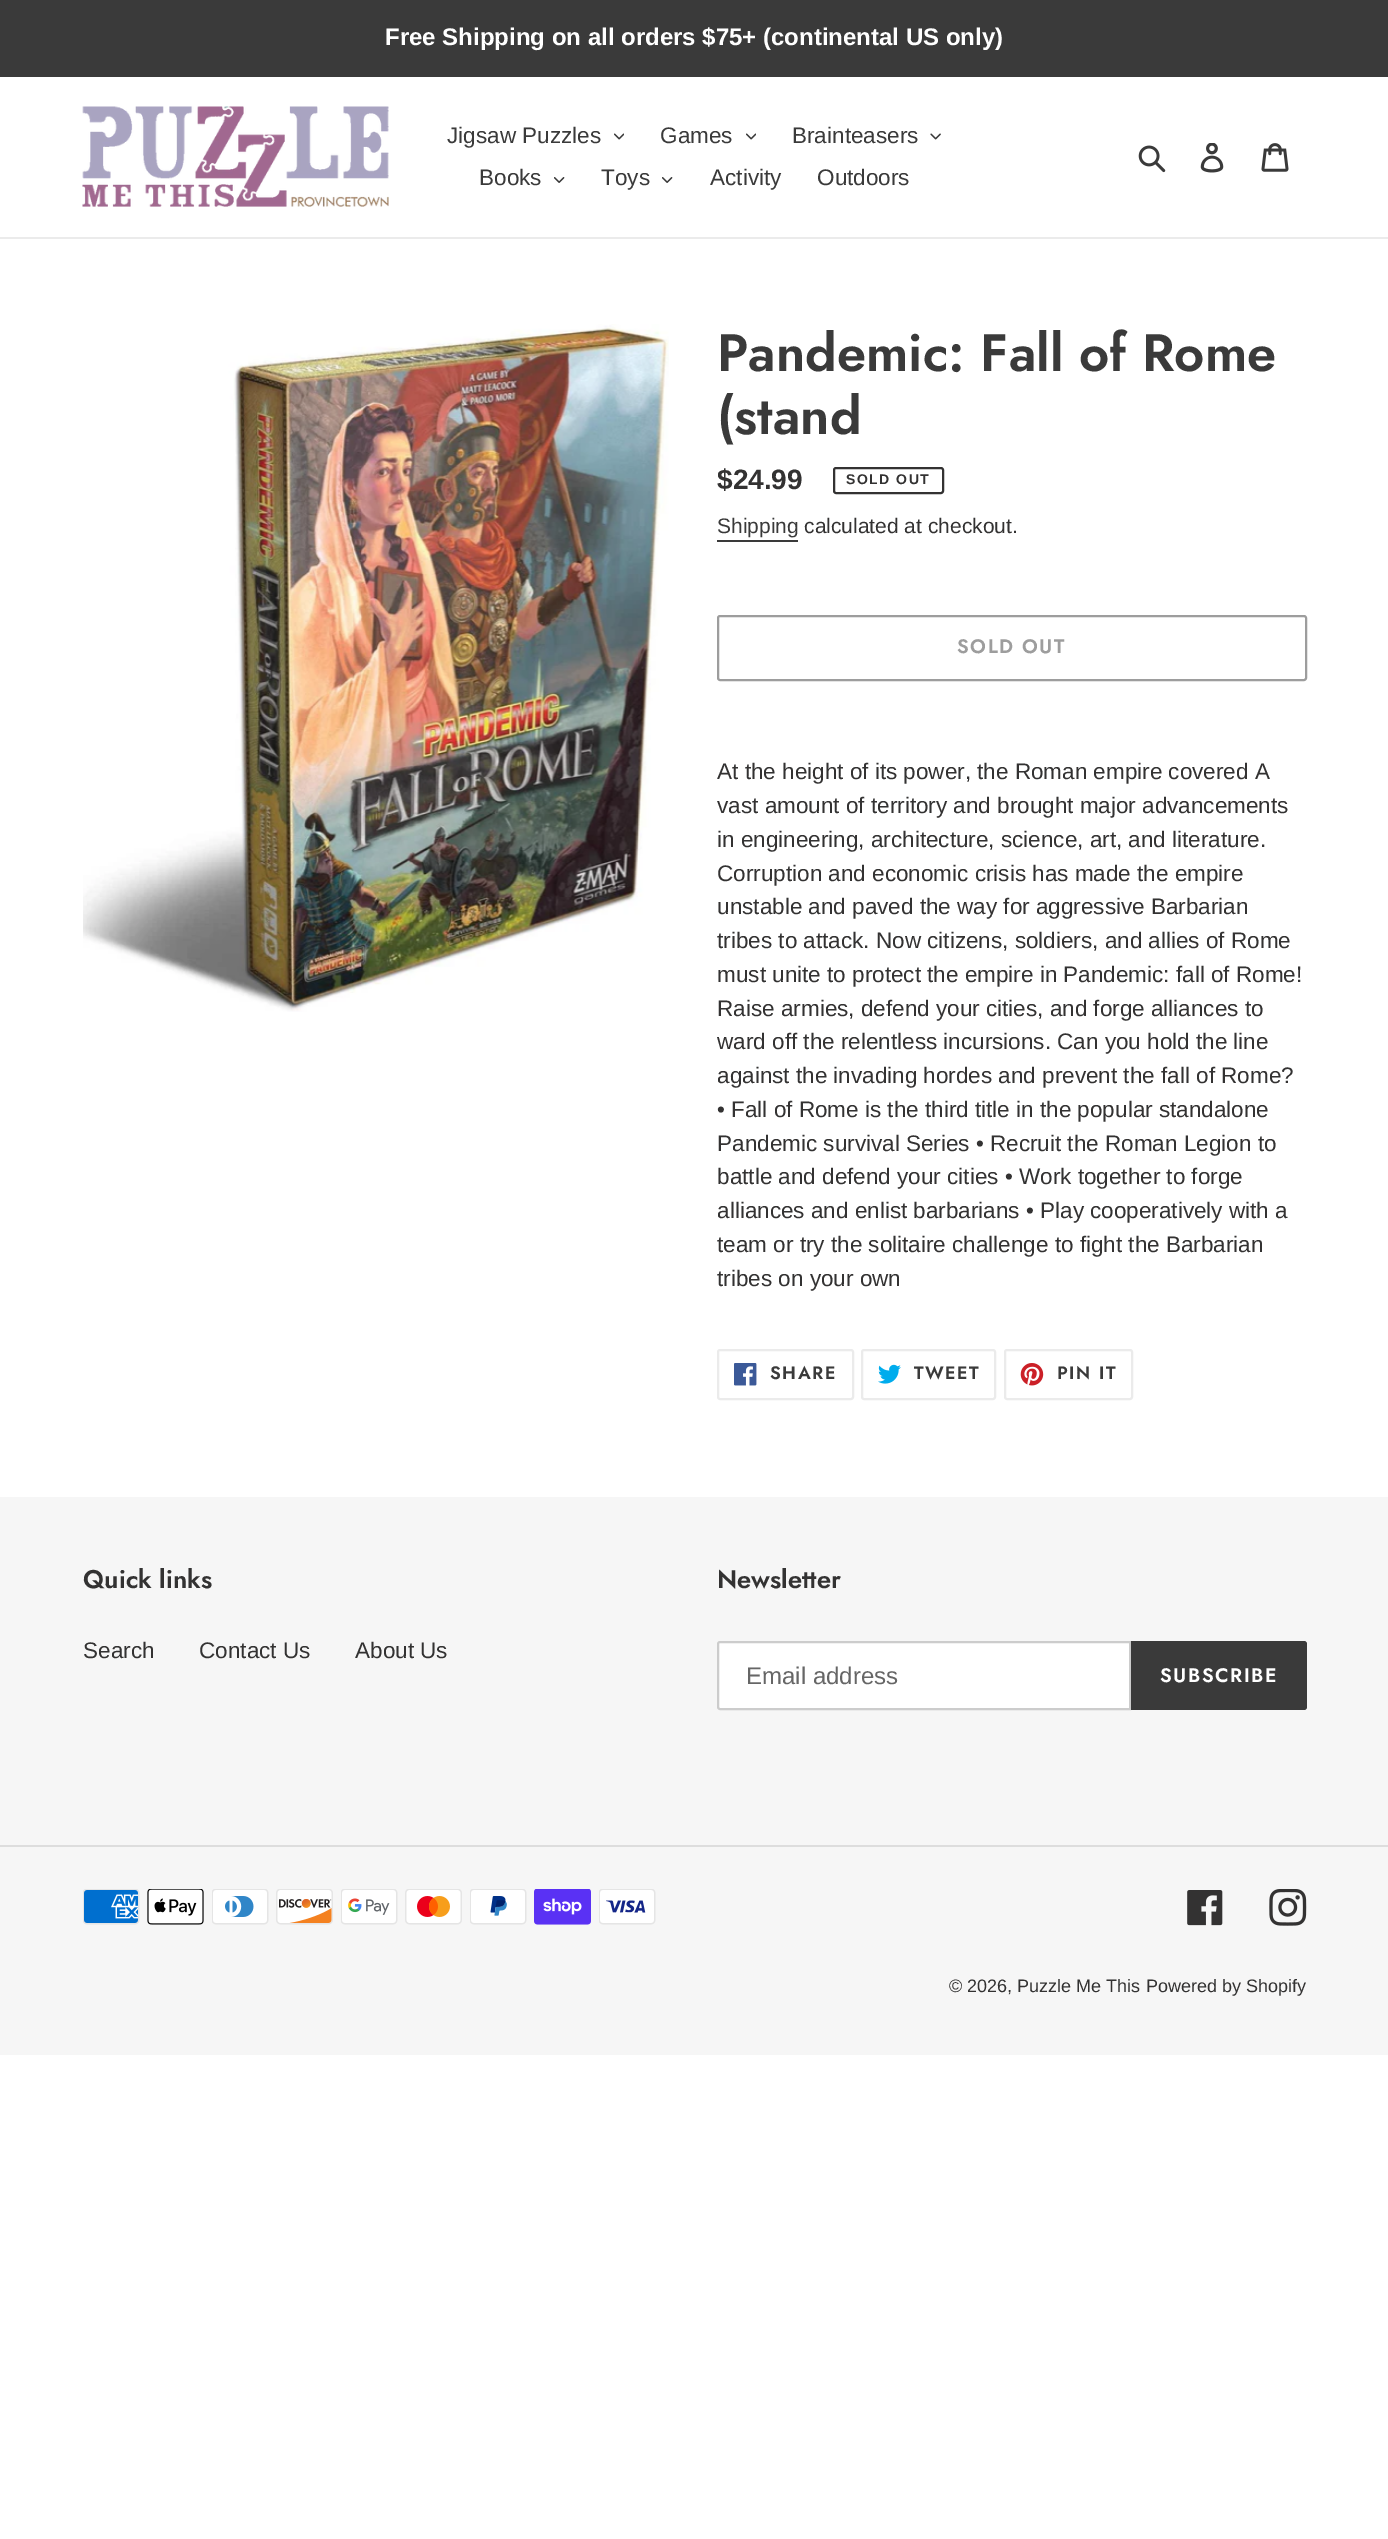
%!PS-Adobe-3.0
%%BoundingBox: 0 0 1388 2539
%%LanguageLevel: 3
%%Pages: 1
%%EndComments
%%BeginProlog
/setink { dup -16 bitshift 255 div exch dup -8 bitshift 255 and 255 div exch 255 and 255 div setrgbcolor } def
/usefont { [ exch dup neg 0 0 3 -1 roll 0 0 ] selectfont } def
/rrect { 5 dict begin { /r /h /w /y /x } { exch def } forall
  x r add y moveto x w add y 2 copy h add r arct x w add y h add x 1 index r arct
  x y h add x y r arct x y 2 copy exch w add exch r arct closepath end } def
/drawimage { 5 dict begin { /h /w /y /x /name } { exch def } forall
  gsave x y translate w h scale
  w h 8 [w 0 0 h 0 0] name (r) file false 3 colorimage grestore end } def
%%EndProlog
%%BeginSetup
<< /PageSize [1388 2539] >> setpagedevice
%%EndSetup
%%Page: 1 1
0 2539 translate 1 -1 scale
4 setmiterlimit
16#FFFFFF setink
0 0 1388 2539 rectfill
16#3A3A3A setink
0 0 1388 77 rectfill
/LiberationSans-Bold 24 usefont
16#FFFFFF setink
385 45 moveto (Free Shipping on all orders $75+ \(continental US only\)) show
16#EBEBEB setink
0 237 1388 2 rectfill
(img1.raw) 82 106 307 101 drawimage
/LiberationSans-Regular 22.5 usefont
16#3A3A3A setink
447 143 moveto (Jigsaw Puzzles) show
(img2.raw) 614 133 10 7 drawimage
660 143 moveto (Games) show
(img2.raw) 746 133 10 7 drawimage
792 143 moveto (Brainteasers) show
(img3.raw) 930 133 11 7 drawimage
479 185 moveto (Books) show
(img4.raw) 554 177 11 6 drawimage
601 185 moveto (Toys) show
(img4.raw) 662 177 11 6 drawimage
710 185 moveto (Activity) show
817 185 moveto (Outdoors) show
(img5.raw) 1138 145 28 28 drawimage
(img6.raw) 1200 143 24 30 drawimage
(img7.raw) 1261 143 28 29 drawimage
(img8.raw) 83 324 586 688 drawimage
/Jost-SemiBold 52.5 usefont
717 371 moveto (Pandemic: Fall of Rome) show
717 434 moveto (\(stand) show
/LiberationSans-Bold 28 usefont
16#333232 setink
717 489 moveto ($24.99) show
2 setlinewidth
834 468 109 25 2 rrect stroke
/LiberationSans-Bold 14 usefont
846 484 moveto 1.5 0 (SOLD OUT) ashow
/LiberationSans-Regular 21 usefont
16#3A3A3A setink
717 533 moveto (Shipping) show
717 540 81 2 rectfill
16#333232 setink
804 533 moveto (calculated at checkout.) show
16#9D9D9D setink
718 616 588 64 2 rrect stroke
/Jost-SemiBold 19.5 usefont
957 653 moveto 1.5 0 (SOLD OUT) ashow
/LiberationSans-Regular 22.5 usefont
16#333232 setink
[
    [(At the height of its power, the Roman empire covered A) 717 779]
    [(vast amount of territory and brought major advancements) 717 813]
    [(in engineering, architecture, science, art, and literature.) 717 847]
    [(Corruption and economic crisis has made the empire) 717 881]
    [(unstable and paved the way for aggressive Barbarian) 717 914]
    [(tribes to attack. Now citizens, soldiers, and allies of Rome) 717 948]
    [(must unite to protect the empire in Pandemic: fall of Rome!) 717 982]
    [(Raise armies, defend your cities, and forge alliances to) 717 1016]
    [(ward off the relentless incursions. Can you hold the line) 717 1049]
    [(against the invading hordes and prevent the fall of Rome?) 717 1083]
    [(• Fall of Rome is the third title in the popular standalone) 717 1117]
    [(Pandemic survival Series • Recruit the Roman Legion to) 717 1151]
    [(battle and defend your cities • Work together to forge) 717 1184]
    [(alliances and enlist barbarians • Play cooperatively with a) 717 1218]
    [(team or try the solitaire challenge to fight the Barbarian) 717 1252]
    [(tribes on your own) 717 1286]
] { aload pop moveto show } forall
16#EBEBEB setink
718 1350 135 49 2 rrect stroke
(img9.raw) 734 1363 23 23 drawimage
/Jost-SemiBold 18 usefont
16#3A3A3A setink
770 1379 moveto 1.5 0 (SHARE) ashow
16#EBEBEB setink
862 1350 133 49 2 rrect stroke
(img10.raw) 878 1364 23 20 drawimage
16#3A3A3A setink
914 1379 moveto 1.5 0 (TWEET) ashow
16#EBEBEB setink
1005 1350 127 49 2 rrect stroke
(img11.raw) 1020 1363 24 23 drawimage
16#3A3A3A setink
1057 1379 moveto 1.5 0 (PIN IT) ashow
16#F6F6F6 setink
0 1497 1388 558 rectfill
/Jost-SemiBold 25.5 usefont
16#333232 setink
83 1588 moveto (Quick links) show
/LiberationSans-Regular 22.5 usefont
[
    [(Search) 83 1658]
    [(Contact Us) 199 1658]
    [(About Us) 355 1658]
] { aload pop moveto show } forall
/Jost-SemiBold 25.5 usefont
717 1588 moveto (Newsletter) show
16#FFFFFF setink
720 1642 moveto 1130 1642 lineto 1130 1709 lineto 720 1709 lineto 719 1709 718 1708 718 1707 curveto 718 1644 lineto 718 1643 719 1642 720 1642 curveto closepath gsave fill grestore
16#CCCCCC setink
stroke
/LiberationSans-Regular 24 usefont
16#666666 setink
746 1684 moveto (Email address) show
16#3A3A3A setink
1131 1641 moveto 1304 1641 lineto 1305.5 1641 1307 1642.5 1307 1644 curveto 1307 1707 lineto 1307 1708.5 1305.5 1710 1304 1710 curveto 1131 1710 lineto closepath fill
/Jost-SemiBold 19.5 usefont
16#FFFFFF setink
1160 1682 moveto 1.5 0 (SUBSCRIBE) ashow
16#DDDDDD setink
0 1845 1388 2 rectfill
(img12.raw) 83 1889 57 36 drawimage
(img13.raw) 147 1889 57 36 drawimage
(img14.raw) 212 1889 57 36 drawimage
(img15.raw) 276 1889 57 36 drawimage
(img16.raw) 341 1889 57 36 drawimage
(img17.raw) 405 1889 57 36 drawimage
(img18.raw) 470 1889 57 36 drawimage
(img19.raw) 534 1889 57 36 drawimage
(img20.raw) 599 1889 57 36 drawimage
(img21.raw) 1187 1890 36 36 drawimage
(img22.raw) 1269 1889 38 37 drawimage
/LiberationSans-Regular 18 usefont
16#333232 setink
949 1992 moveto (© 2026, Puzzle Me This) show
1146 1992 moveto (Powered by Shopify) show
showpage
%%EOF
